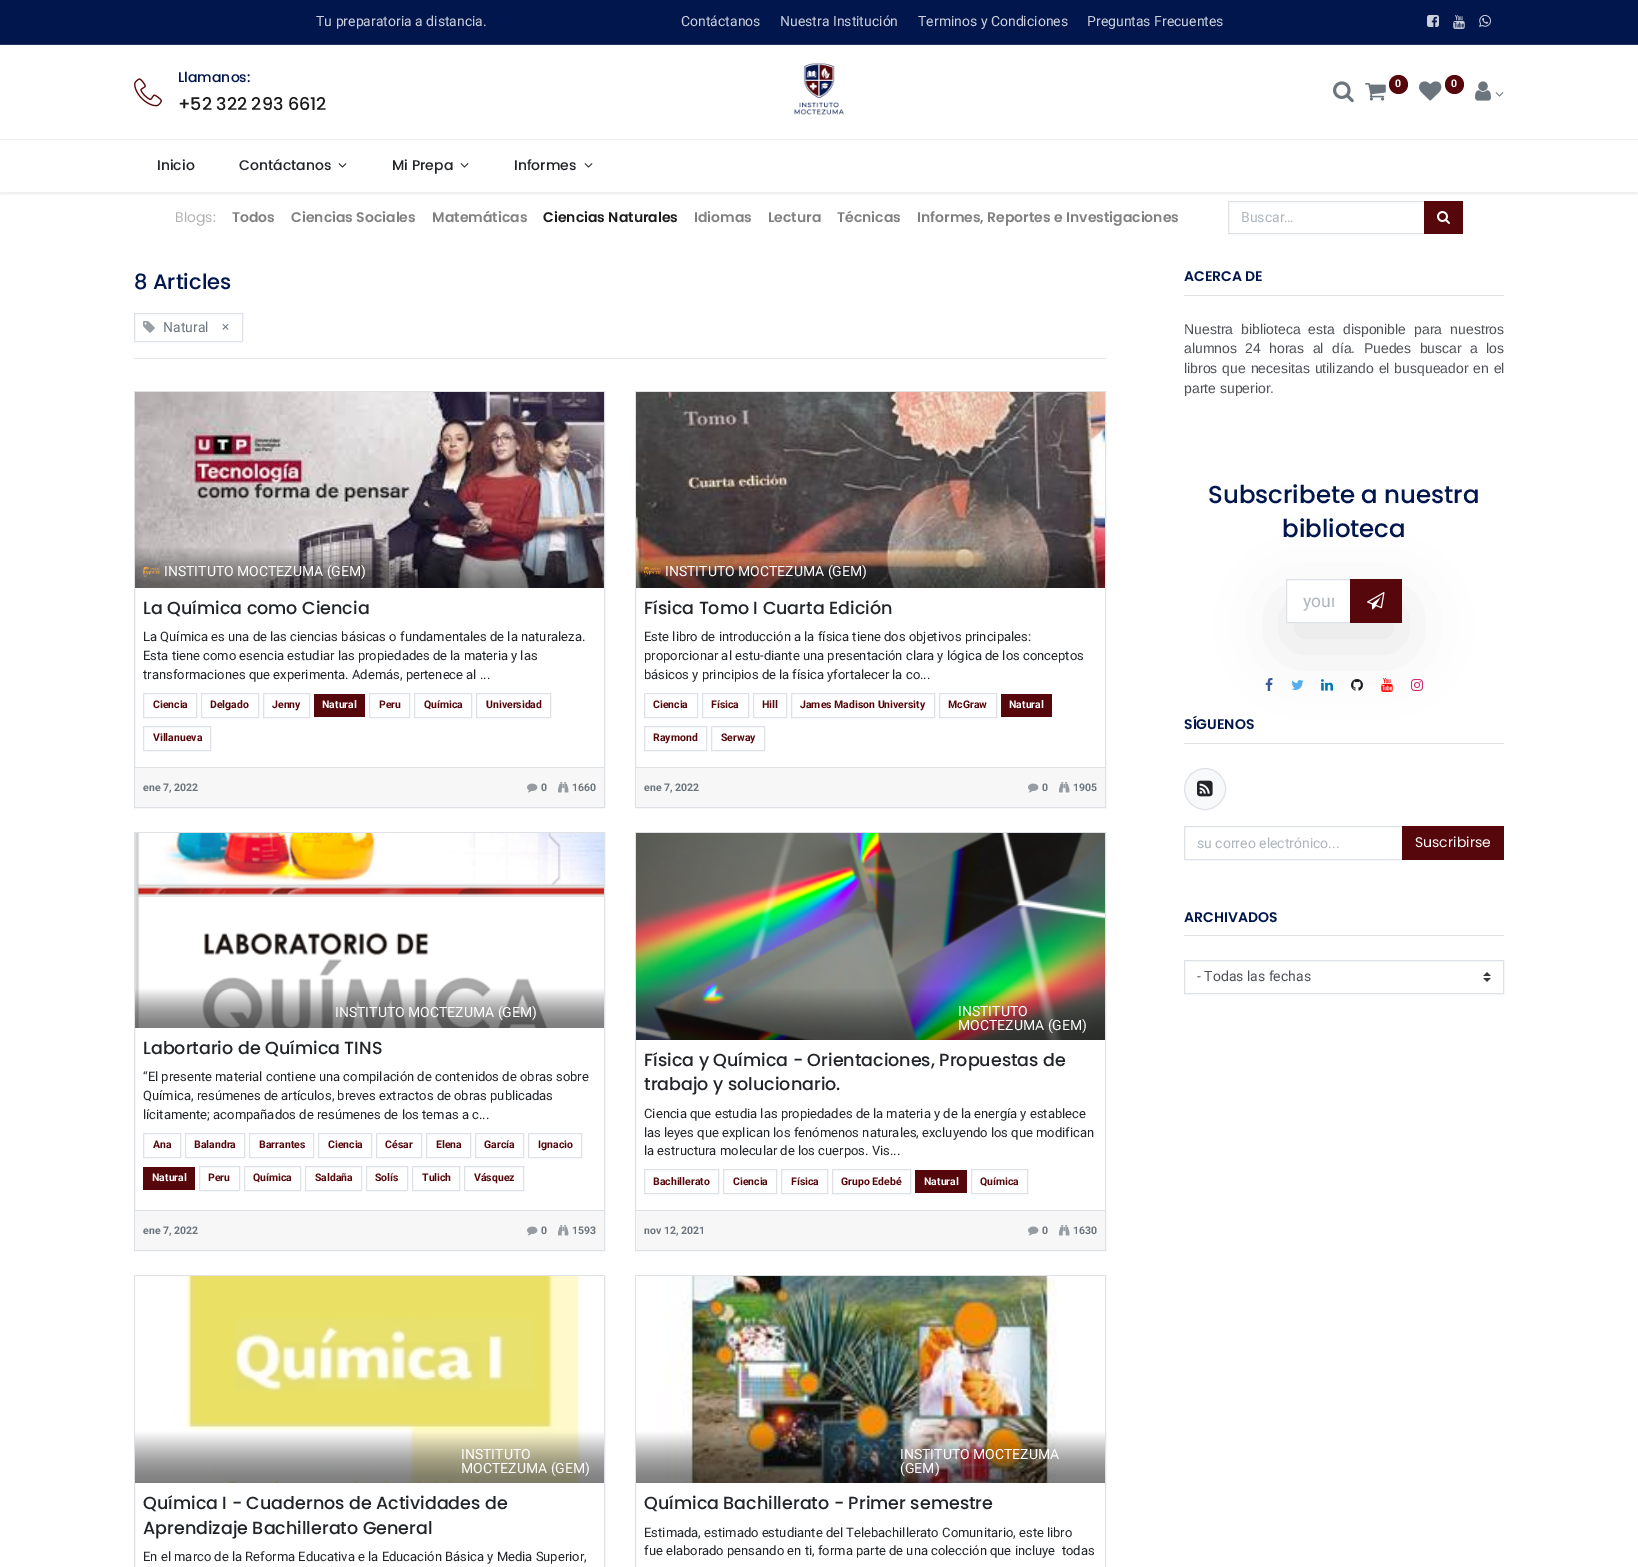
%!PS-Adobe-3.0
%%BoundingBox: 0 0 1638 1567
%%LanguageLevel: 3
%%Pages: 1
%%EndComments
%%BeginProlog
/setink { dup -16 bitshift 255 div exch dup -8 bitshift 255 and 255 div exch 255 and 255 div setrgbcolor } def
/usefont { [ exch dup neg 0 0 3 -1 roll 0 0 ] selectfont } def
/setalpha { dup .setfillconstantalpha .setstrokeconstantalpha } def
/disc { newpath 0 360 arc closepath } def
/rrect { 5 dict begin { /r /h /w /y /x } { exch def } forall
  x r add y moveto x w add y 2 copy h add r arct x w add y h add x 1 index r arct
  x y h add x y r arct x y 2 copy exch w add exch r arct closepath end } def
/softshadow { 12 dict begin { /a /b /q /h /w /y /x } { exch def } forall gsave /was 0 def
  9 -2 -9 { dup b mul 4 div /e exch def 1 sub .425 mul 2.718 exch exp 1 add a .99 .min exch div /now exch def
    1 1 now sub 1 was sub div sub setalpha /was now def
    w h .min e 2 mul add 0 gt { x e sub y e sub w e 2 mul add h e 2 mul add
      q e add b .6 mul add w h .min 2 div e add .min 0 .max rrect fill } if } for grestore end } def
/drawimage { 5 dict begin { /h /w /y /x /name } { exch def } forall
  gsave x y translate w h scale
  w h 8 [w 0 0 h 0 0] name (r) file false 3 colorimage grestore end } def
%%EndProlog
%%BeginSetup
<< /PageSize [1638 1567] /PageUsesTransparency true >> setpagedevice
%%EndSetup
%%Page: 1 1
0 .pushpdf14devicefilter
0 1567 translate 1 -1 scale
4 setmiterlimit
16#FFFFFF setink
0 0 1638 1567 rectfill
16#02164E setink
0 0 1638 44 rectfill
16#203263 setink
0 44 1638 1 rectfill
/Roboto-Regular 14 usefont
16#CCD0DC setink
[
    [(Tu preparatoria a distancia.) 316 26]
    [(Contáctanos) 681 26]
    [(Nuestra Institución) 780 26]
    [(Terminos y Condiciones) 918 26]
    [(Preguntas Frecuentes) 1087 26]
] { aload pop moveto show } forall
(img1.raw) 1427 15 12 12 drawimage
(img2.raw) 1453 15 12 14 drawimage
(img3.raw) 1479 15 12 12 drawimage
16#EDEEEF setink
0 139 1638 1 rectfill
(img4.raw) 134 78 28 29 drawimage
/Poppins-Medium 14 usefont
16#02164E setink
178 82 moveto (Llamanos:) show
/Poppins-Medium 17.5 usefont
16#1A1A1A setink
178 110 moveto (+52 322 293 6612) show
(img5.raw) 794 62 50 53 drawimage
(img6.raw) 1333 81 21 22 drawimage
(img7.raw) 1365 83 21 18 drawimage
16#56070C setink
1398.5 84.5 9.5 disc fill
/Roboto-Bold 10.5 usefont
16#FFFFFF setink
1395 87 moveto (0) show
(img8.raw) 1419 81 23 20 drawimage
16#56070C setink
1454.5 84.5 9.5 disc fill
16#FFFFFF setink
1451 87 moveto (0) show
(img9.raw) 1475 81 16 20 drawimage
(img10.raw) 1495 92 9 5 drawimage
gsave
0 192 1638 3 rectclip
16#000000 setink
0 142 1638 52 0 2 0.07 softshadow
grestore
/Poppins-Medium 14 usefont
16#212529 setink
157 170 moveto (Inicio) show
239 170 moveto (Contáctanos) show
(img11.raw) 338 163 9 5 drawimage
392 170 moveto (Mi Prepa) show
(img11.raw) 460 163 9 5 drawimage
514 170 moveto (Informes) show
(img11.raw) 584 163 9 5 drawimage
/Poppins-Regular 14 usefont
16#B3B3B3 setink
175 222 moveto (Blogs:) show
/Poppins-SemiBold 14 usefont
16#808080 setink
[
    [(Todos) 232 222]
    [(Ciencias Sociales) 291 222]
    [(Matemáticas) 432 222]
] { aload pop moveto show } forall
16#1A1A1A setink
543 222 moveto (Ciencias Naturales) show
16#808080 setink
[
    [(Idiomas) 694 222]
    [(Lectura) 768 222]
    [(Técnicas) 837 222]
    [(Informes, Reportes e Investigaciones) 917 222]
] { aload pop moveto show } forall
16#DEE2E6 setink
1228.5 201.5 196 32 rectstroke
/Roboto-Regular 14 usefont
16#ADB5BD setink
1241 222 moveto (Buscar…) show
16#56070C setink
1424 201 39 33 rectfill
(img12.raw) 1437 211 13 13 drawimage
/Poppins-Medium 21 usefont
16#02164E setink
134 289 moveto (8 Articles) show
16#DEE2E6 setink
134.5 313.5 108 28 rectstroke
(img13.raw) 143 321 12 12 drawimage
/Roboto-Regular 14 usefont
16#6C757D setink
163 332 moveto (Natural) show
/Poppins-Regular 14 usefont
221 332 moveto (×) show
16#E6E6E6 setink
134 358 972 1 rectfill
16#DEE2E6 setink
134.5 391.5 470 416 rectstroke
(img14.raw) 135 392 469 196 drawimage
(img15.raw) 143 567 17 10 drawimage
/Roboto-Regular 14 usefont
16#FFFFFF setink
164 576 moveto (INSTITUTO MOCTEZUMA \(GEM\)) show
/Poppins-Medium 17.5 usefont
16#212529 setink
143 614 moveto (La Química como Ciencia) show
/Roboto-Regular 13 usefont
[
    [(La Química es una de las ciencias básicas o fundamentales de la naturaleza.) 143 641]
    [(Esta tiene como esencia estudiar las propiedades de la materia y las) 143 660]
    [(transformaciones que experimenta. Además, pertenece al ...) 143 679]
] { aload pop moveto show } forall
16#DEE2E6 setink
143.5 693.5 53 24 rectstroke
/Roboto-Bold 10.5 usefont
16#56070C setink
153 708 moveto (Ciencia) show
16#DEE2E6 setink
201.5 693.5 57 24 rectstroke
16#56070C setink
210 708 moveto (Delgado) show
16#DEE2E6 setink
263.5 693.5 46 24 rectstroke
16#56070C setink
272 708 moveto (Jenny) show
314 694 51 23 rectfill
16#FFFFFF setink
322 708 moveto (Natural) show
16#DEE2E6 setink
369.5 693.5 40 24 rectstroke
16#56070C setink
379 708 moveto (Peru) show
16#DEE2E6 setink
414.5 693.5 57 24 rectstroke
16#56070C setink
424 708 moveto (Química) show
16#DEE2E6 setink
476.5 693.5 74 24 rectstroke
16#56070C setink
486 708 moveto (Universidad) show
16#DEE2E6 setink
143.5 726.5 67 24 rectstroke
16#56070C setink
153 741 moveto (Villanueva) show
16#F7F7F7 setink
135 768 469 39 rectfill
16#DEE2E6 setink
135 767 469 1 rectfill
16#6C757D setink
143 791 moveto (ene 7, 2022) show
(img16.raw) 527 783 11 10 drawimage
541 791 moveto (0) show
(img17.raw) 558 782 11 11 drawimage
572 791 moveto (1660) show
16#DEE2E6 setink
635.5 391.5 470 416 rectstroke
(img18.raw) 636 392 469 196 drawimage
(img19.raw) 644 567 17 10 drawimage
/Roboto-Regular 14 usefont
16#FFFFFF setink
665 576 moveto (INSTITUTO MOCTEZUMA \(GEM\)) show
/Poppins-Medium 17.5 usefont
16#212529 setink
644 614 moveto (Física Tomo I Cuarta Edición) show
/Roboto-Regular 13 usefont
[
    [(Este libro de introducción a la física tiene dos objetivos principales:) 644 641]
    [(proporcionar al estu-diante una presentación clara y lógica de los conceptos) 644 660]
    [(básicos y principios de la física yfortalecer la co...) 644 679]
] { aload pop moveto show } forall
16#DEE2E6 setink
644.5 693.5 53 24 rectstroke
/Roboto-Bold 10.5 usefont
16#56070C setink
653 708 moveto (Ciencia) show
16#DEE2E6 setink
702.5 693.5 46 24 rectstroke
16#56070C setink
711 708 moveto (Física) show
16#DEE2E6 setink
753.5 693.5 33 24 rectstroke
16#56070C setink
762 708 moveto (Hill) show
16#DEE2E6 setink
791.5 693.5 143 24 rectstroke
16#56070C setink
800 708 moveto (James Madison University) show
16#DEE2E6 setink
939.5 693.5 57 24 rectstroke
16#56070C setink
948 708 moveto (McGraw) show
1001 694 51 23 rectfill
16#FFFFFF setink
1009 708 moveto (Natural) show
16#DEE2E6 setink
644.5 726.5 62 24 rectstroke
16#56070C setink
653 741 moveto (Raymond) show
16#DEE2E6 setink
711.5 726.5 53 24 rectstroke
16#56070C setink
721 741 moveto (Serway) show
16#F7F7F7 setink
636 768 469 39 rectfill
16#DEE2E6 setink
636 767 469 1 rectfill
16#6C757D setink
644 791 moveto (ene 7, 2022) show
(img16.raw) 1028 783 11 10 drawimage
1042 791 moveto (0) show
(img17.raw) 1059 782 11 11 drawimage
1073 791 moveto (1905) show
16#DEE2E6 setink
134.5 832.5 470 418 rectstroke
(img20.raw) 135 833 469 195 drawimage
/Roboto-Regular 14 usefont
16#FFFFFF setink
335 1017 moveto (INSTITUTO MOCTEZUMA \(GEM\)) show
/Poppins-Medium 17.5 usefont
16#212529 setink
143 1054 moveto (Labortario de Química TINS) show
/Roboto-Regular 13 usefont
[
    [(“El presente material contiene una compilación de contenidos de obras sobre) 143 1081]
    [(Química, resúmenes de artículos, breves extractos de obras publicadas) 143 1100]
    [(lícitamente; acompañados de resúmenes de los temas a c...) 143 1119]
] { aload pop moveto show } forall
16#DEE2E6 setink
143.5 1133.5 37 24 rectstroke
/Roboto-Bold 10.5 usefont
16#56070C setink
153 1148 moveto (Ana) show
16#DEE2E6 setink
185.5 1133.5 59 24 rectstroke
16#56070C setink
194 1148 moveto (Balandra) show
16#DEE2E6 setink
249.5 1133.5 64 24 rectstroke
16#56070C setink
259 1148 moveto (Barrantes) show
16#DEE2E6 setink
318.5 1133.5 53 24 rectstroke
16#56070C setink
328 1148 moveto (Ciencia) show
16#DEE2E6 setink
376.5 1133.5 45 24 rectstroke
16#56070C setink
385 1148 moveto (César) show
16#DEE2E6 setink
426.5 1133.5 44 24 rectstroke
16#56070C setink
436 1148 moveto (Elena) show
16#DEE2E6 setink
475.5 1133.5 48 24 rectstroke
16#56070C setink
484 1148 moveto (García) show
16#DEE2E6 setink
528.5 1133.5 53 24 rectstroke
16#56070C setink
538 1148 moveto (Ignacio) show
143 1167 52 23 rectfill
16#FFFFFF setink
152 1181 moveto (Natural) show
16#DEE2E6 setink
199.5 1166.5 40 24 rectstroke
16#56070C setink
208 1181 moveto (Peru) show
16#DEE2E6 setink
244.5 1166.5 56 24 rectstroke
16#56070C setink
253 1181 moveto (Química) show
16#DEE2E6 setink
305.5 1166.5 56 24 rectstroke
16#56070C setink
315 1181 moveto (Saldaña) show
16#DEE2E6 setink
366.5 1166.5 41 24 rectstroke
16#56070C setink
375 1181 moveto (Solís) show
16#DEE2E6 setink
412.5 1166.5 47 24 rectstroke
16#56070C setink
422 1181 moveto (Tulich) show
16#DEE2E6 setink
464.5 1166.5 59 24 rectstroke
16#56070C setink
474 1181 moveto (Vásquez) show
16#F7F7F7 setink
135 1211 469 39 rectfill
16#DEE2E6 setink
135 1210 469 1 rectfill
16#6C757D setink
143 1234 moveto (ene 7, 2022) show
(img16.raw) 527 1226 11 10 drawimage
541 1234 moveto (0) show
(img17.raw) 558 1225 11 11 drawimage
572 1234 moveto (1593) show
16#DEE2E6 setink
635.5 832.5 470 418 rectstroke
(img21.raw) 636 833 469 207 drawimage
/Roboto-Regular 14 usefont
16#FFFFFF setink
958 1016 moveto (INSTITUTO) show
958 1030 moveto (MOCTEZUMA \(GEM\)) show
/Poppins-Medium 17.5 usefont
16#212529 setink
644 1066 moveto (Física y Química - Orientaciones, Propuestas de) show
644 1090 moveto (trabajo y solucionario.) show
/Roboto-Regular 13 usefont
[
    [(Ciencia que estudia las propiedades de la materia y de la energía y establece) 644 1118]
    [(las leyes que explican los fenómenos naturales, excluyendo los que modifican) 644 1137]
    [(la estructura molecular de los cuerpos. Vis...) 644 1155]
] { aload pop moveto show } forall
16#DEE2E6 setink
644.5 1169.5 74 24 rectstroke
/Roboto-Bold 10.5 usefont
16#56070C setink
653 1185 moveto (Bachillerato) show
16#DEE2E6 setink
723.5 1169.5 53 24 rectstroke
16#56070C setink
733 1185 moveto (Ciencia) show
16#DEE2E6 setink
781.5 1169.5 46 24 rectstroke
16#56070C setink
791 1185 moveto (Física) show
16#DEE2E6 setink
832.5 1169.5 78 24 rectstroke
16#56070C setink
841 1185 moveto (Grupo Edebé) show
915 1170 52 23 rectfill
16#FFFFFF setink
924 1185 moveto (Natural) show
16#DEE2E6 setink
971.5 1169.5 56 24 rectstroke
16#56070C setink
980 1185 moveto (Química) show
16#F7F7F7 setink
636 1211 469 39 rectfill
16#DEE2E6 setink
636 1210 469 1 rectfill
16#6C757D setink
644 1234 moveto (nov 12, 2021) show
(img16.raw) 1028 1226 11 10 drawimage
1042 1234 moveto (0) show
(img17.raw) 1059 1225 11 11 drawimage
1073 1234 moveto (1630) show
16#DEE2E6 setink
134.5 1275.5 470 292 rectstroke
(img22.raw) 135 1276 469 207 drawimage
/Roboto-Regular 14 usefont
16#FFFFFF setink
461 1459 moveto (INSTITUTO) show
461 1473 moveto (MOCTEZUMA \(GEM\)) show
/Poppins-Medium 17.5 usefont
16#212529 setink
143 1509 moveto (Química I - Cuadernos de Actividades de) show
143 1534 moveto (Aprendizaje Bachillerato General) show
/Roboto-Regular 13 usefont
143 1561 moveto (En el marco de la Reforma Educativa e la Educación Básica y Media Superior,) show
16#DEE2E6 setink
635.5 1275.5 470 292 rectstroke
(img23.raw) 636 1276 469 207 drawimage
/Roboto-Regular 14 usefont
16#FFFFFF setink
900 1459 moveto (INSTITUTO MOCTEZUMA) show
900 1473 moveto (\(GEM\)) show
/Poppins-Medium 17.5 usefont
16#212529 setink
644 1509 moveto (Química Bachillerato - Primer semestre) show
/Roboto-Regular 13 usefont
644 1537 moveto (Estimada, estimado estudiante del Telebachillerato Comunitario, este libro) show
644 1555 moveto (fue elaborado pensando en ti, forma parte de una colección que incluye  todas) show
16#DEE2E6 setink
1184 295 320 1 rectfill
/Poppins-SemiBold 14 usefont
16#02164E setink
1184 281 moveto (ACERCA DE) show
/LiberationSans-Regular 14 usefont
16#4D5156 setink
1184 334 moveto 4.25 0 32 (Nuestra biblioteca esta disponible para nuestros) widthshow
1184 353 moveto 4.5 0 32 (alumnos 24 horas al día. Puedes buscar a los) widthshow
1184 373 moveto 1 0 32 (libros que necesitas utilizando el busqueador en el) widthshow
1184 393 moveto (parte superior.) show
/Poppins-Medium 24.5 usefont
16#02164E setink
1208 503 moveto (Subscribete a nuestra) show
1282 537 moveto (biblioteca) show
16#DEE2E6 setink
1184 743 320 1 rectfill
gsave
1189 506 moveto 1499 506 lineto 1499 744 lineto 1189 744 lineto closepath 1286 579 moveto 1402 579 lineto 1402 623 lineto 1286 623 lineto closepath eoclip newpath
16#000000 setink
1286 603 116 44 0 32 0.1 softshadow
grestore
1286.5 579.5 64 43 rectstroke
gsave
1303 591 31 20 rectclip
/Roboto-Regular 17.5 usefont
16#ADB5BD setink
1303 607 moveto (your) show
grestore
16#56070C setink
1350 579 52 44 rectfill
(img24.raw) 1367 592 18 18 drawimage
(img25.raw) 1265 678 8 13 drawimage
(img26.raw) 1291 680 13 10 drawimage
(img27.raw) 1321 679 12 12 drawimage
(img28.raw) 1351 679 12 12 drawimage
(img29.raw) 1381 678 12 14 drawimage
(img30.raw) 1411 679 12 12 drawimage
/Poppins-SemiBold 14 usefont
16#02164E setink
1184 729 moveto (SÍGUENOS) show
16#F8F9FA setink
1205 789 20.5 disc gsave fill grestore
16#DEE2E6 setink
stroke
(img31.raw) 1197 780 16 17 drawimage
1184.5 826.5 219 33 rectstroke
/Roboto-Regular 14 usefont
16#ADB5BD setink
1197 848 moveto (su correo electrónico...) show
16#56070C setink
1402 826 102 34 rectfill
/Poppins-Regular 14 usefont
16#FFFFFF setink
1415 847 moveto (Suscribirse) show
16#DEE2E6 setink
1184 935 320 1 rectfill
/Poppins-SemiBold 14 usefont
16#02164E setink
1184 922 moveto (ARCHIVADOS) show
(img32.raw) 1483 972 8 10 drawimage
16#DEE2E6 setink
1184.5 960.5 319 33 rectstroke
/Roboto-Regular 14 usefont
16#4D5156 setink
1197 981 moveto (- Todas las fechas) show
.poppdf14devicefilter showpage
%%EOF
